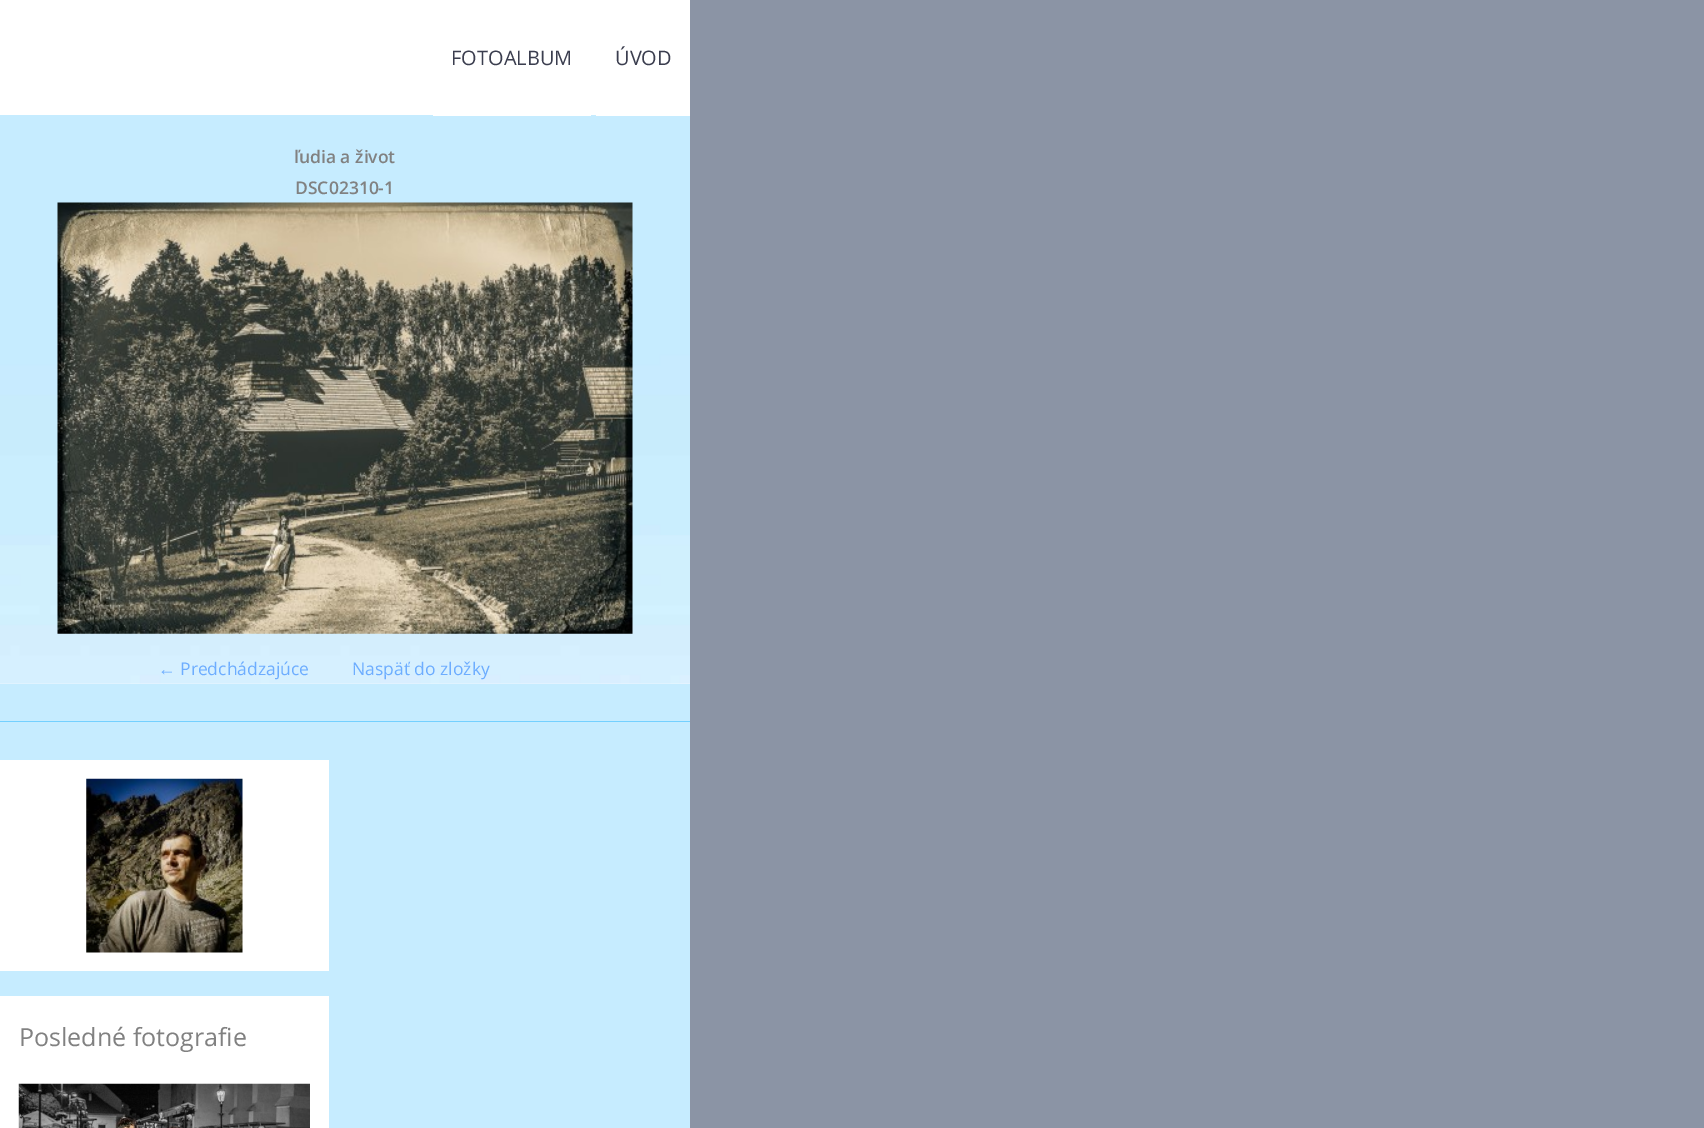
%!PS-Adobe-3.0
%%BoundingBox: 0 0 1704 1128
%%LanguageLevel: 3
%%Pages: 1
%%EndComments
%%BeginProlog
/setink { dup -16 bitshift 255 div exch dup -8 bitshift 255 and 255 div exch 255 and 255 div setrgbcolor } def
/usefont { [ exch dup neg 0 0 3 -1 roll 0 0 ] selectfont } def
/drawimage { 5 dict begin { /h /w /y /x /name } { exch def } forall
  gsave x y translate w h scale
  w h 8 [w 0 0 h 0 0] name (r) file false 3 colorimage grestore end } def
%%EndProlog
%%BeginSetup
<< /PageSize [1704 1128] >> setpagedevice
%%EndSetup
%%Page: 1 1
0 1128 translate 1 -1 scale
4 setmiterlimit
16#8B94A5 setink
0 0 1704 1128 rectfill
16#C6ECFF setink
0 683 690 445 rectfill
16#FFFFFF setink
0 0 690 115 rectfill
(img1.raw) 0 115 690 569 drawimage
433 115 158 1 rectfill
/OpenSans-Regular 20 usefont
16#3B3E4F setink
451 65 moveto (FOTOALBUM) show
16#FFFFFF setink
596 115 94 1 rectfill
16#3B3E4F setink
615 65 moveto (ÚVOD) show
/OpenSans-SemiBold 17.5 usefont
16#818181 setink
294 163 moveto (ľudia a život) show
295 194 moveto (DSC02310-1) show
(img2.raw) 57 202 576 432 drawimage
/LiberationSans-Regular 17.5 usefont
16#6DADFF setink
158 675 moveto (←) show
/OpenSans-Regular 17.5 usefont
180 675 moveto (Predchádzajúce) show
352 675 moveto (Naspäť do zložky) show
16#73D0FF setink
0 721 690 1 rectfill
16#FFFFFF setink
0 760 329 211 rectfill
(img3.raw) 86 778 157 175 drawimage
0 996 329 132 rectfill
/OpenSans-Regular 25 usefont
16#818181 setink
19 1046 moveto (Posledné fotografie) show
(img4.raw) 18 1083 292 45 drawimage
showpage
%%EOF
